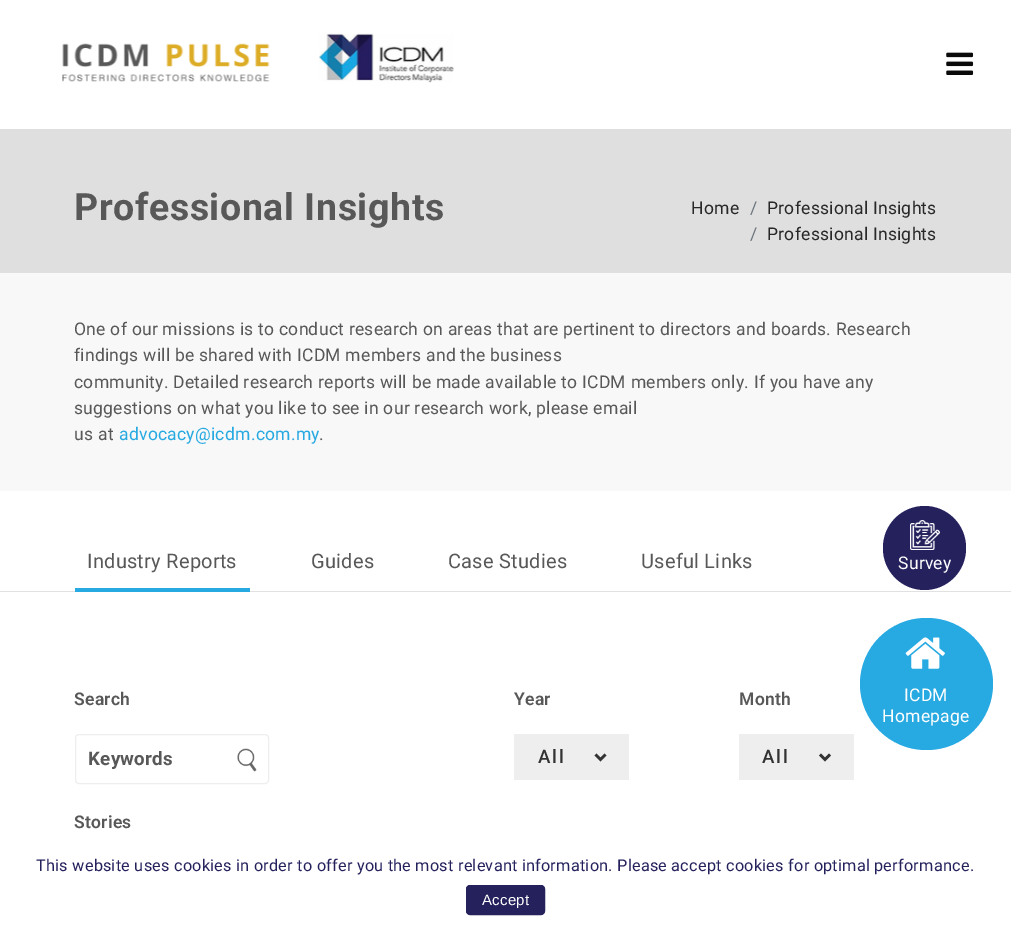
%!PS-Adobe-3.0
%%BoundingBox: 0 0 1011 933
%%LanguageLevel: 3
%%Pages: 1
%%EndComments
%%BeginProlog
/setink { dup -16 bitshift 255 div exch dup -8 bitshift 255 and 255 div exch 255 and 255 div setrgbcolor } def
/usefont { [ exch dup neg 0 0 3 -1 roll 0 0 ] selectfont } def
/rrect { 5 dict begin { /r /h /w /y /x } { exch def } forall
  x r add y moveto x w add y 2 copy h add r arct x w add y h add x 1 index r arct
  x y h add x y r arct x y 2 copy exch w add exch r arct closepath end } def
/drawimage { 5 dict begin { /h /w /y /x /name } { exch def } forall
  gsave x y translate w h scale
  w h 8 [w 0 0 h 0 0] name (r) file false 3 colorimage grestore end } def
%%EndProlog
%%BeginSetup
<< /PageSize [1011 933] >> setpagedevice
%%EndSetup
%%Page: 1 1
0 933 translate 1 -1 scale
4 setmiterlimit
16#FFFFFF setink
0 0 1011 933 rectfill
(img1.raw) 62 43 208 39 drawimage
(img2.raw) 319 33 135 50 drawimage
(img3.raw) 946 52 28 23 drawimage
16#DFDFDF setink
0 129 1011 144 rectfill
/Roboto-Bold 37.5 usefont
16#585858 setink
74 220 moveto 0.6 0 (Professional Insights) ashow
/Roboto-Regular 17.5 usefont
16#282828 setink
691 214 moveto 0.26 0 (Home) ashow
16#6C757D setink
750 214 moveto 0.26 0 (/) ashow
16#282828 setink
767 214 moveto 0.26 0 (Professional Insights) ashow
16#6C757D setink
750 240 moveto 0.26 0 (/) ashow
16#282828 setink
767 240 moveto 0.26 0 (Professional Insights) ashow
16#F8F8F8 setink
0 273 1011 218 rectfill
16#585858 setink
74 335 moveto 0.26 0 (One of our missions is to conduct research on areas that are pertinent to directors and boards. Research) ashow
74 361 moveto 0.26 0 (findings will be shared with ICDM members and the business) ashow
74 388 moveto 0.26 0 (community. Detailed research reports will be made available to ICDM members only. If you have any) ashow
74 414 moveto 0.26 0 (suggestions on what you like to see in our research work, please email) ashow
74 440 moveto 0.26 0 (us at) ashow
16#27A9E2 setink
119 440 moveto 0.26 0 (advocacy@icdm.com.my) ashow
16#585858 setink
319 440 moveto 0.26 0 (.) ashow
16#E1E1E1 setink
0 591 1011 1 rectfill
16#27A9E2 setink
75 588 175 4 rectfill
/Roboto-Regular 20 usefont
16#585858 setink
87 568 moveto 0.25 0 (Industry Reports) ashow
311 568 moveto 0.25 0 (Guides) ashow
448 568 moveto 0.25 0 (Case Studies) ashow
641 568 moveto 0.25 0 (Useful Links) ashow
16#25215D setink
883 506 83 84 41.5 rrect fill
(img4.raw) 910 520 30 30 drawimage
/Roboto-Regular 17.5 usefont
16#FFFFFF setink
898 569 moveto 0.26 0 (Survey) ashow
16#27A9E2 setink
860 618 133 132 66 rrect fill
(img5.raw) 905 637 40 32 drawimage
16#FFFFFF setink
904 701 moveto 0.26 0 (ICDM) ashow
882 722 moveto 0.26 0 (Homepage) ashow
/Roboto-Regular 16.25 usefont
16#25215D setink
36 871 moveto 0.24 0 (This website uses cookies in order to offer you the most relevant information. Please accept cookies for optimal performance.) ashow
466.5 885.5 78 29 3.5 rrect gsave fill grestore
stroke
/LiberationSans-Regular 15 usefont
16#FFFFFF setink
482 905 moveto 0.25 0 (Accept) ashow
/Roboto-SemiBold 17.5 usefont
16#585858 setink
74 705 moveto 0.26 0 (Search) ashow
16#EEEEEE setink
75.5 734.5 193 49 3.5 rrect stroke
/Roboto-Bold 18.75 usefont
16#585858 setink
88 765 moveto 0.25 0 (Keywords) ashow
(img6.raw) 237 748 20 24 drawimage
/Roboto-SemiBold 17.5 usefont
514 705 moveto 0.26 0 (Year) ashow
16#EEEEEE setink
514 734 115 46 rectfill
16#333333 setink
2.5 setlinewidth
595.5 754.5 moveto 600.5 759.5 lineto 605.5 754.5 lineto stroke
/Roboto-Medium 18.75 usefont
538 763 moveto 2 0 (All) ashow
/Roboto-SemiBold 17.5 usefont
16#585858 setink
739 705 moveto 0.26 0 (Month) ashow
16#EEEEEE setink
739 734 115 46 rectfill
16#333333 setink
820 754.5 moveto 825 759.5 lineto 830 754.5 lineto stroke
/Roboto-Medium 18.75 usefont
762 763 moveto 2 0 (All) ashow
/Roboto-SemiBold 17.5 usefont
16#585858 setink
74 828 moveto 0.26 0 (Stories) ashow
showpage
%%EOF
